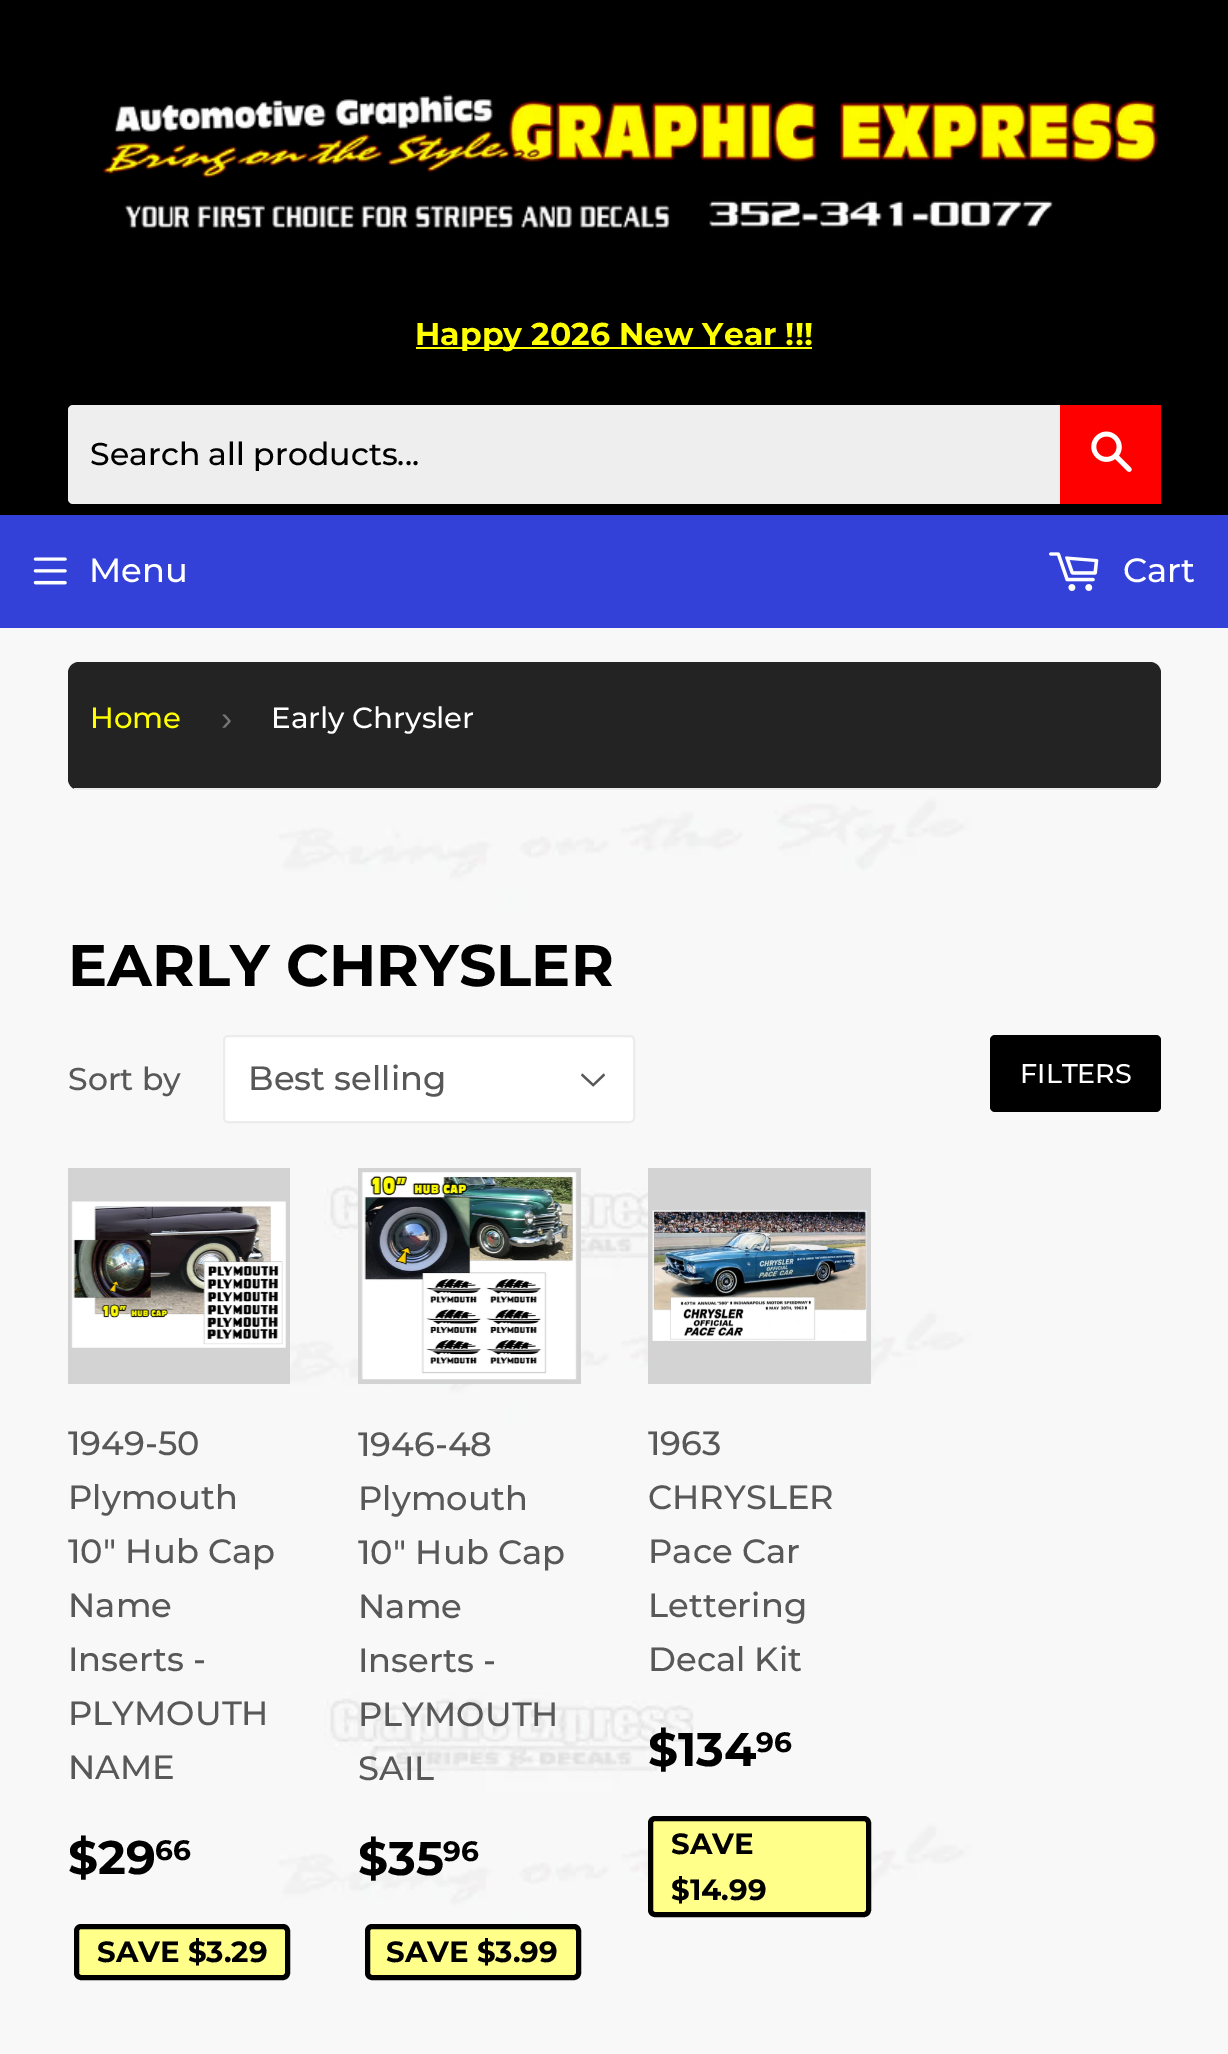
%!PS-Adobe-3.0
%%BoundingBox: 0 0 1228 2054
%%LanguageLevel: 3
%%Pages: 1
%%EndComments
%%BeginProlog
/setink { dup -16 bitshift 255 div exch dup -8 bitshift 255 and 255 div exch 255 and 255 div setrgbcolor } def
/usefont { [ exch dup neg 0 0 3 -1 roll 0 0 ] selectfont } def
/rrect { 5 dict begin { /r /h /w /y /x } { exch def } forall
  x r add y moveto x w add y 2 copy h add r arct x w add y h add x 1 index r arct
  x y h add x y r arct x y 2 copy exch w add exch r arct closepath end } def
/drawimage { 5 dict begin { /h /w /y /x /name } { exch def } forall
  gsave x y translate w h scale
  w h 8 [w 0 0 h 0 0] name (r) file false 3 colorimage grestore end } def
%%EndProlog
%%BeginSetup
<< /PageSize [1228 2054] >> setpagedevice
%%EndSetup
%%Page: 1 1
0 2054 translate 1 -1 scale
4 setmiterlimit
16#FFFFFF setink
0 0 1228 2054 rectfill
(img1.raw) 0 628 1228 1426 drawimage
16#000000 setink
0 0 1228 515 rectfill
(img2.raw) 102 94 1056 135 drawimage
16#FFFF00 setink
416 347 396 2 rectfill
/Montserrat-Bold 31.5 usefont
415 345 moveto (Happy 2026 New Year !!!) show
16#EEEEEE setink
68 405 1093 99 5 rrect fill
/Montserrat-Medium 31.5 usefont
16#000000 setink
90 465 moveto (Search all products...) show
16#FF0000 setink
1060 405 101 99 rectfill
(img3.raw) 1091 431 41 41 drawimage
16#3341D8 setink
0 515 1228 113 rectfill
(img4.raw) 33 557 34 28 drawimage
/Montserrat-Medium 33.75 usefont
16#FFFFFF setink
89 582 moveto (Menu) show
(img5.raw) 1049 552 50 39 drawimage
1123 582 moveto (Cart) show
16#232323 setink
68 662 1093 128 11 rrect fill
16#ECECEC setink
74 788 1083 2 rectfill
/Montserrat-Medium 29.25 usefont
16#FFFF00 setink
90 728 moveto (Home) show
/LiberationSans-Regular 33.75 usefont
16#767676 setink
221 730 moveto (›) show
/Montserrat-Medium 29.25 usefont
16#FFFFFF setink
271 728 moveto (Early Chrysler) show
/Montserrat-Bold 58.5 usefont
16#000000 setink
68 986 moveto (EARLY CHRYSLER) show
/Montserrat-Medium 31.5 usefont
16#585858 setink
68 1090 moveto (Sort by) show
16#FFFFFF setink
223 1035 412 88 5 rrect fill
(img6.raw) 581 1073 24 14 drawimage
16#ECECEC setink
2 setlinewidth
224 1036 410 86 4 rrect stroke
/Montserrat-Medium 33.75 usefont
16#585858 setink
248 1090 moveto (Best selling) show
16#000000 setink
990 1035 171 77 5 rrect fill
/Montserrat-Medium 27 usefont
16#FFFFFF setink
1020 1083 moveto (FILTERS) show
16#D3D3D3 setink
68 1168 222 216 rectfill
(img7.raw) 71 1201 215 147 drawimage
/Montserrat-Medium 33.75 usefont
16#585858 setink
[
    [(1949-50) 68 1455]
    [(Plymouth) 68 1509]
    [(10" Hub Cap) 68 1563]
    [(Name) 68 1617]
    [(Inserts -) 68 1671]
    [(PLYMOUTH) 68 1725]
    [(NAME) 68 1779]
] { aload pop moveto show } forall
/Montserrat-Bold 47 usefont
16#000000 setink
68 1874 moveto ($29) show
/Montserrat-Bold 28 usefont
155 1860 moveto (66) show
16#FFFF89 setink
76.5 1926.5 211 51 4.5 rrect gsave fill grestore
16#000000 setink
5 setlinewidth
stroke
/Montserrat-Bold 29.25 usefont
97 1962 moveto (SAVE $3.29) show
16#D3D3D3 setink
358 1168 223 216 rectfill
(img8.raw) 361 1172 216 208 drawimage
/Montserrat-Medium 33.75 usefont
16#585858 setink
[
    [(1946-48) 358 1456]
    [(Plymouth) 358 1510]
    [(10" Hub Cap) 358 1564]
    [(Name) 358 1618]
    [(Inserts -) 358 1672]
    [(PLYMOUTH) 358 1726]
    [(SAIL) 358 1780]
] { aload pop moveto show } forall
/Montserrat-Bold 47 usefont
16#000000 setink
358 1875 moveto ($35) show
/Montserrat-Bold 28 usefont
443 1861 moveto (96) show
16#FFFF89 setink
367.5 1926.5 211 51 4.5 rrect gsave fill grestore
16#000000 setink
stroke
/Montserrat-Bold 29.25 usefont
386 1962 moveto (SAVE $3.99) show
16#D3D3D3 setink
648 1168 223 216 rectfill
(img9.raw) 652 1210 215 131 drawimage
/Montserrat-Medium 33.75 usefont
16#585858 setink
[
    [(1963) 648 1455]
    [(CHRYSLER) 648 1509]
    [(Pace Car) 648 1563]
    [(Lettering) 648 1617]
    [(Decal Kit) 648 1671]
] { aload pop moveto show } forall
/Montserrat-Bold 47 usefont
16#000000 setink
648 1766 moveto ($134) show
/Montserrat-Bold 28 usefont
756 1752 moveto (96) show
16#FFFF89 setink
650.5 1818.5 218 96 4.5 rrect gsave fill grestore
16#000000 setink
stroke
/Montserrat-Bold 29.25 usefont
671 1854 moveto (SAVE) show
671 1900 moveto ($14.99) show
showpage
%%EOF
